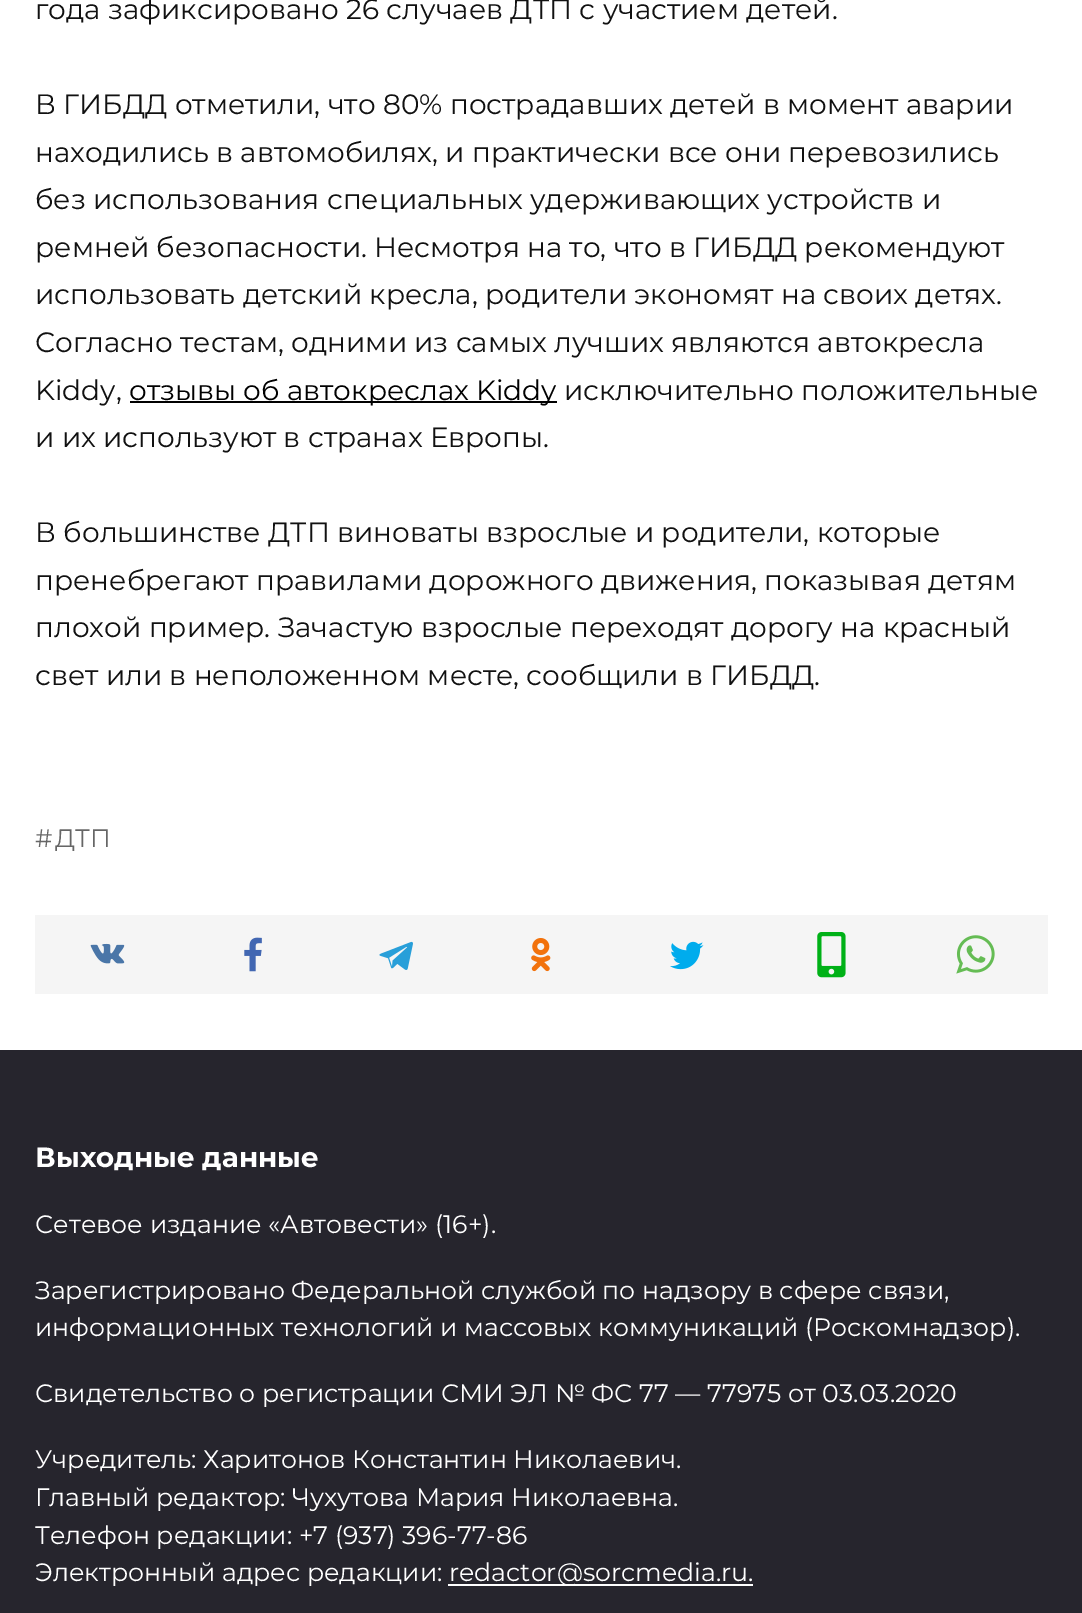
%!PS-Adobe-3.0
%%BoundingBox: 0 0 1082 1613
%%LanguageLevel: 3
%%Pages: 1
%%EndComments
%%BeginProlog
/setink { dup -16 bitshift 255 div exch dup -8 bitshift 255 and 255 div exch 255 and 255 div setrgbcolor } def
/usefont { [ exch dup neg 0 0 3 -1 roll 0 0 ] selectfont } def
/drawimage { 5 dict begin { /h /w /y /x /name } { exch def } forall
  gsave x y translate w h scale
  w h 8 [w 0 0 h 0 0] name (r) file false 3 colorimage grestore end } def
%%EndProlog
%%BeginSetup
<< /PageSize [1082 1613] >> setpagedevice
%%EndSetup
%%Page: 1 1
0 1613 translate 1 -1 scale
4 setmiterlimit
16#FFFFFF setink
0 0 1082 1613 rectfill
/Montserrat-Regular 28 usefont
16#111111 setink
[
    [(года зафиксировано 26 случаев ДТП с участием детей.) 35 19]
    [(В ГИБДД отметили, что 80% пострадавших детей в момент аварии) 35 114]
    [(находились в автомобилях, и практически все они перевозились) 35 162]
    [(без использования специальных удерживающих устройств и) 35 209]
    [(ремней безопасности. Несмотря на то, что в ГИБДД рекомендуют) 35 257]
    [(использовать детский кресла, родители экономят на своих детях.) 35 304]
    [(Согласно тестам, одними из самых лучших являются автокресла) 35 352]
    [(Kiddy,) 35 400]
] { aload pop moveto show } forall
16#000000 setink
130 401 427 2 rectfill
129 400 moveto (отзывы об автокреслах Kiddy) show
16#111111 setink
[
    [(исключительно положительные) 564 400]
    [(и их используют в странах Европы.) 35 447]
    [(В большинстве ДТП виноваты взрослые и родители, которые) 35 542]
    [(пренебрегают правилами дорожного движения, показывая детям) 35 590]
    [(плохой пример. Зачастую взрослые переходят дорогу на красный) 35 637]
    [(свет или в неположенном месте, сообщили в ГИБДД.) 35 685]
] { aload pop moveto show } forall
/Montserrat-Regular 25.2 usefont
16#666666 setink
35 847 moveto (#) show
55 847 moveto (ДТП) show
16#F5F5F5 setink
35 915 1013 79 rectfill
(img1.raw) 90 943 35 21 drawimage
(img2.raw) 244 937 18 35 drawimage
(img3.raw) 379 941 34 29 drawimage
(img4.raw) 531 938 20 34 drawimage
(img5.raw) 670 941 34 29 drawimage
(img6.raw) 817 932 29 46 drawimage
(img7.raw) 956 935 39 39 drawimage
16#26252D setink
0 1050 1082 563 rectfill
/Montserrat-Bold 27.75 usefont
16#FFFFFF setink
35 1167 moveto (Выходные данные) show
/Montserrat-Regular 25.2 usefont
[
    [(Сетевое издание «Автовести» \(16+\).) 35 1233]
    [(Зарегистрировано Федеральной службой по надзору в сфере связи,) 35 1299]
    [(информационных технологий и массовых коммуникаций \(Роскомнадзор\).) 35 1336]
    [(Свидетельство о регистрации СМИ ЭЛ № ФС 77 — 77975 от 03.03.2020) 35 1402]
    [(Учредитель: Харитонов Константин Николаевич.) 35 1468]
    [(Главный редактор: Чухутова Мария Николаевна.) 35 1506]
    [(Телефон редакции: +7 \(937\) 396-77-86) 35 1544]
    [(Электронный адрес редакции:) 35 1581]
] { aload pop moveto show } forall
448 1584 305 2 rectfill
449 1581 moveto (redactor@sorcmedia.ru.) show
showpage
%%EOF
